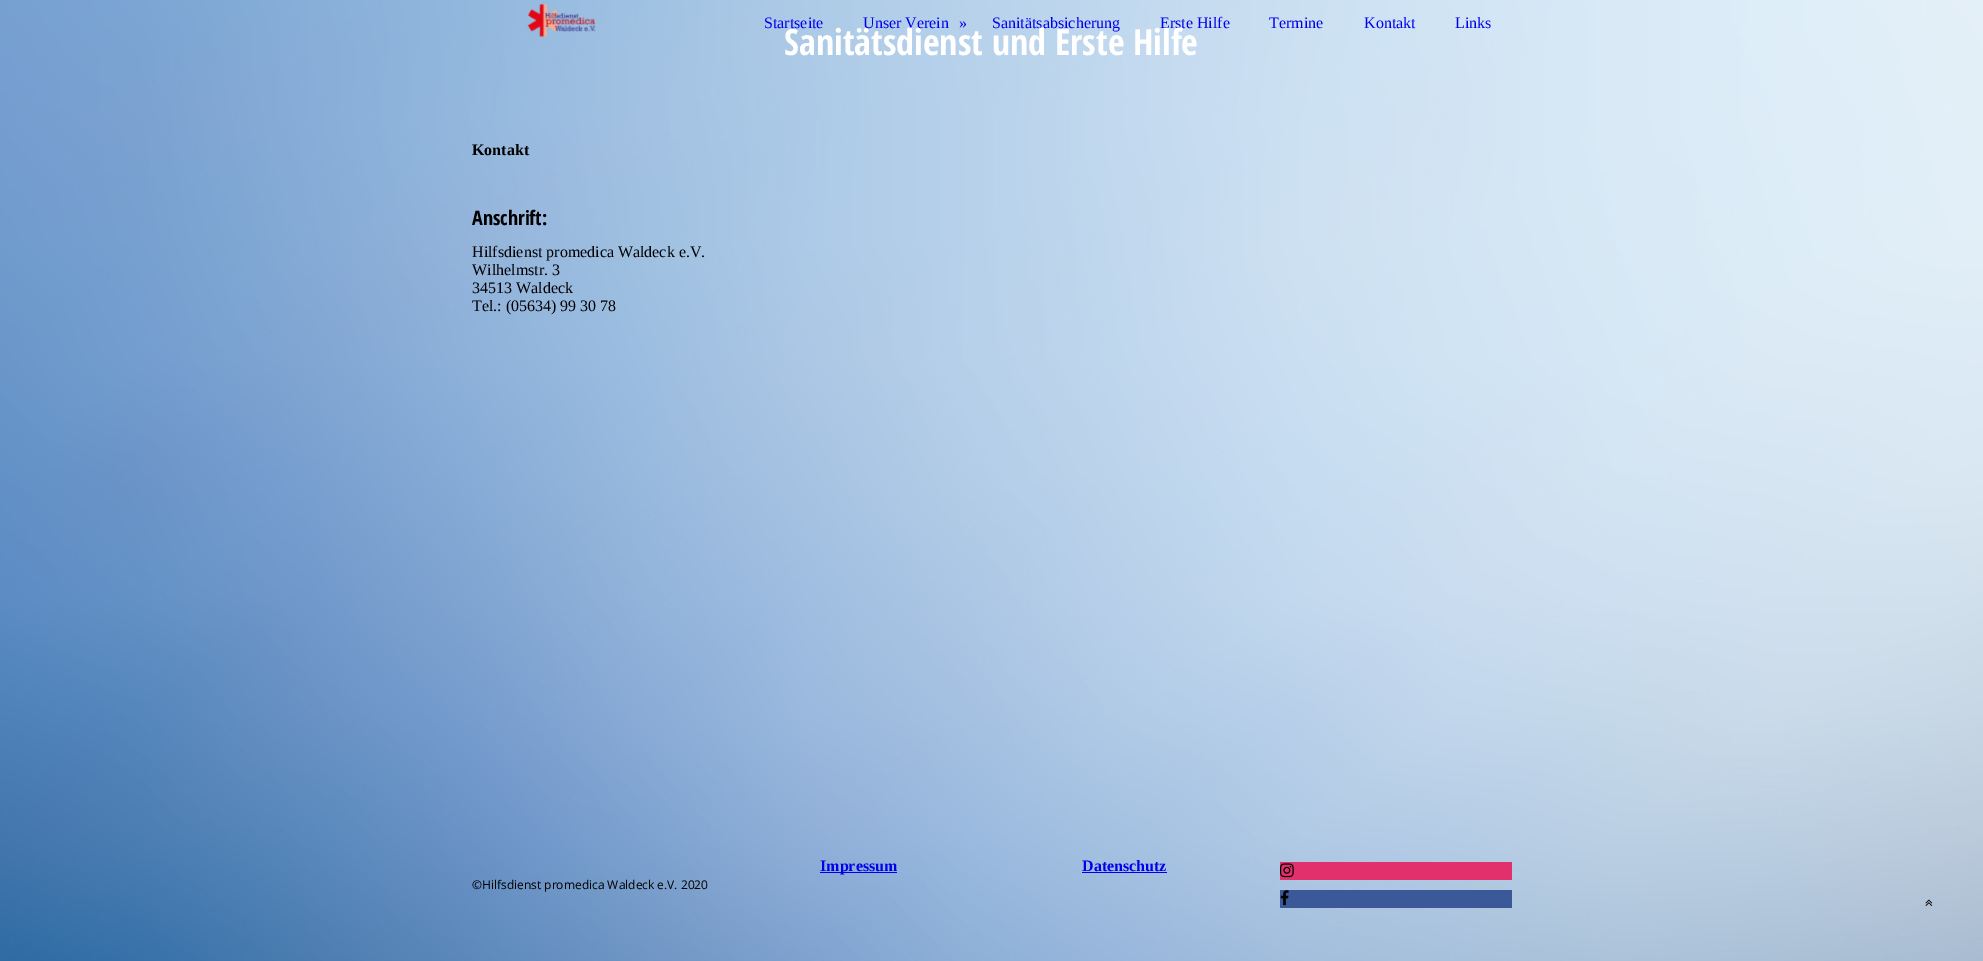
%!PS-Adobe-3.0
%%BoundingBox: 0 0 1983 961
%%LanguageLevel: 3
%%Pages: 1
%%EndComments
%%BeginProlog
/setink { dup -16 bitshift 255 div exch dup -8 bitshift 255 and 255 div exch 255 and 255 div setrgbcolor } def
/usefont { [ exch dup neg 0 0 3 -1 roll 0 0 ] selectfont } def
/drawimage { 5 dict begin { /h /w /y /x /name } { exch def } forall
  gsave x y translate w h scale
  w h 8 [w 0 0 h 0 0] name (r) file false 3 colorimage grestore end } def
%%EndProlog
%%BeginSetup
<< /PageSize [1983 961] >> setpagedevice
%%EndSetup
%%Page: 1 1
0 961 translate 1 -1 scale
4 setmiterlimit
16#FFFFFF setink
0 0 1983 961 rectfill
(img1.raw) 0 0 1983 961 drawimage
(img2.raw) 527 3 69 35 drawimage
/LiberationSerif-Regular 16 usefont
16#0000EE setink
[
    [(Startseite) 764 28]
    [(Unser Verein) 863 28]
    [(») 959 28]
    [(Sanitätsabsicherung) 992 28]
    [(Erste Hilfe) 1160 28]
    [(Termine) 1269 28]
    [(Kontakt) 1364 28]
    [(Links) 1455 28]
] { aload pop moveto show } forall
/OpenSansCondensed-Bold 36 usefont
16#FFFFFF setink
784 55 moveto (Sanitätsdienst und Erste Hilfe) show
/LiberationSerif-Bold 16 usefont
16#000000 setink
472 155 moveto (Kontakt) show
/OpenSansCondensed-Bold 20 usefont
472 225 moveto (Anschrift:) show
/LiberationSerif-Regular 16 usefont
[
    [(Hilfsdienst promedica Waldeck e.V.) 472 257]
    [(Wilhelmstr. 3) 472 275]
    [(34513 Waldeck) 472 293]
    [(Tel.: \(05634\) 99 30 78) 472 311]
] { aload pop moveto show } forall
/OpenSans-Regular 12 usefont
472 889 moveto (©Hilfsdienst promedica Waldeck e.V. 2020) show
16#0000EE setink
820 872 77 1 rectfill
/LiberationSerif-Bold 16 usefont
820 871 moveto (Impressum) show
1082 871 moveto (Datenschutz) show
1082 872 85 1 rectfill
16#E1306C setink
1280 862 232 18 rectfill
(img3.raw) 1280 863 14 15 drawimage
16#3B5998 setink
1280 890 232 18 rectfill
(img4.raw) 1280 890 9 16 drawimage
(img5.raw) 1925 899 8 7 drawimage
showpage
%%EOF
